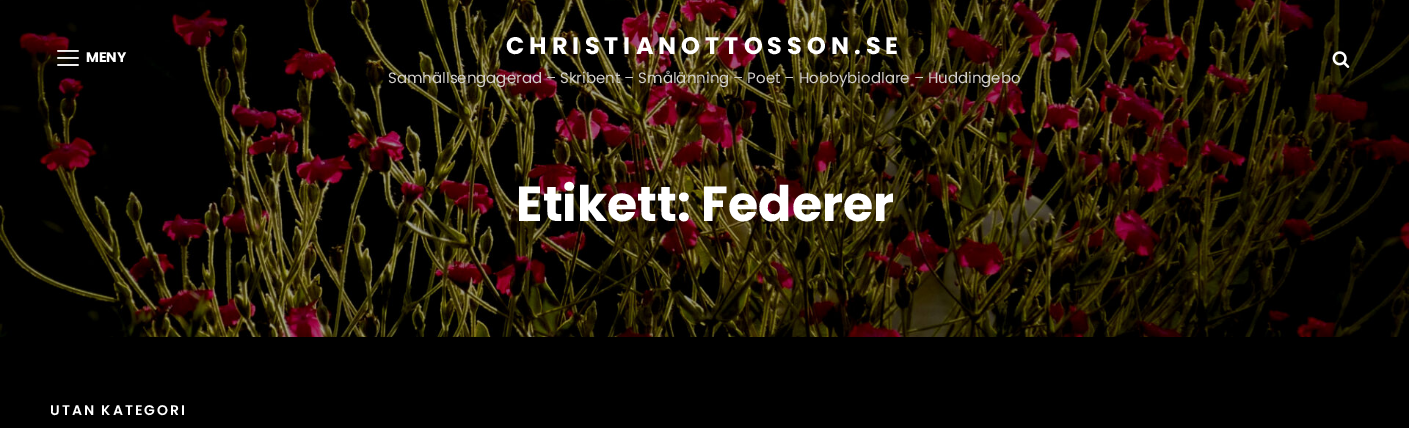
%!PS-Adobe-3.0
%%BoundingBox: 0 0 1409 428
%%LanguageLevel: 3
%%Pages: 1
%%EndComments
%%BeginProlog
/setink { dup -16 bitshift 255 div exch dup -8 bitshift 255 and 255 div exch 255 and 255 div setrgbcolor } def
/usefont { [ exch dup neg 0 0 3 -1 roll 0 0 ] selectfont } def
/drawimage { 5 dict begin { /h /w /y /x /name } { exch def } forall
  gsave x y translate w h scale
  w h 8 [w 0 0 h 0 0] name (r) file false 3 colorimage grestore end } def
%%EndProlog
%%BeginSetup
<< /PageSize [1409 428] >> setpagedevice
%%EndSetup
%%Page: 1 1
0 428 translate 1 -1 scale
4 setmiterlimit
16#000000 setink
0 0 1409 428 rectfill
(img3.raw) 0 0 1409 337 drawimage
(img1.raw) 57 50 22 16 drawimage
/Poppins-Bold 14 usefont
16#FFFFFF setink
86 62 moveto (MENY) show
/Poppins-Bold 24 usefont
506 54 moveto 5 0 (CHRISTIANOTTOSSON.SE) ashow
/Poppins-Regular 15 usefont
16#D3D0CC setink
388 83 moveto (Samhällsengagerad – Skribent – Smålänning – Poet – Hobbybiodlare – Huddingebo) show
(img2.raw) 1332 51 18 17 drawimage
/Poppins-Bold 49 usefont
16#FFFFFF setink
516 221 moveto (Etikett: Federer) show
/Poppins-SemiBold 14 usefont
50 415 moveto 2 0 (UTAN KATEGORI) ashow
showpage
%%EOF
